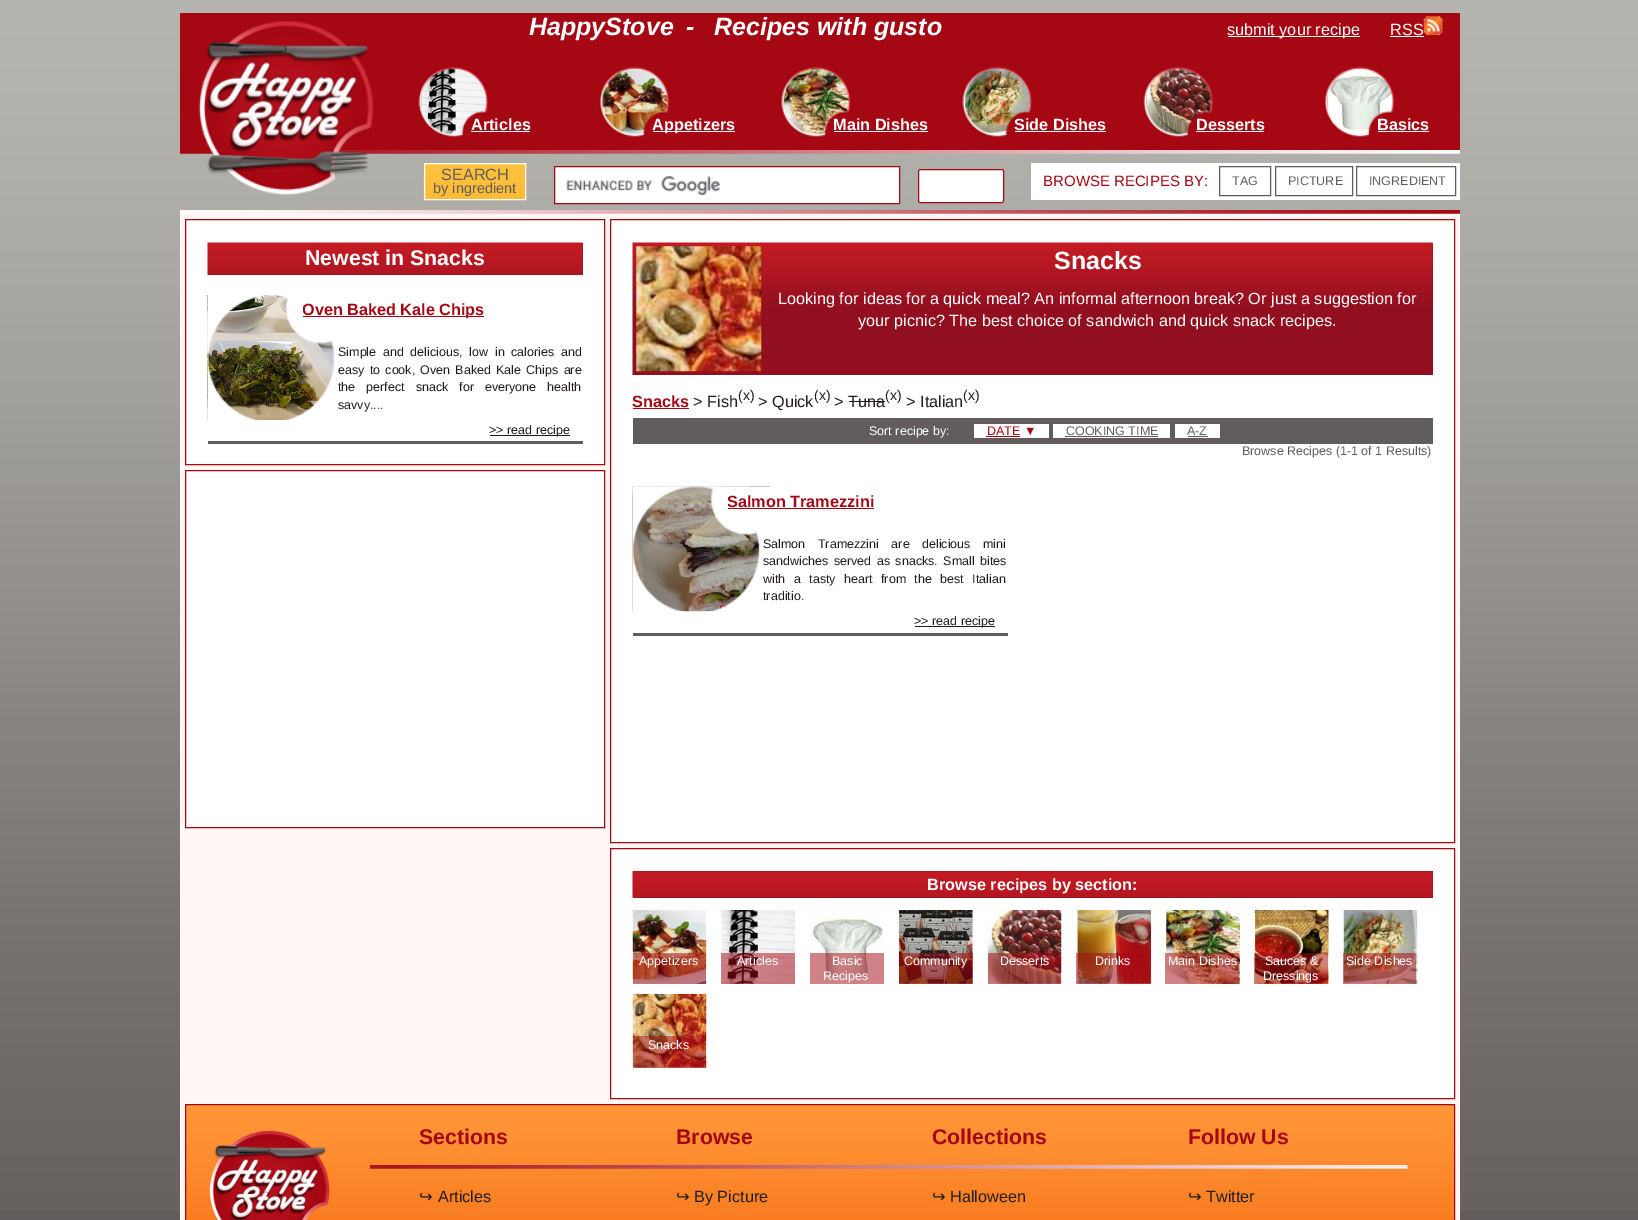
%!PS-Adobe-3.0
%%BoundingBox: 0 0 1638 1220
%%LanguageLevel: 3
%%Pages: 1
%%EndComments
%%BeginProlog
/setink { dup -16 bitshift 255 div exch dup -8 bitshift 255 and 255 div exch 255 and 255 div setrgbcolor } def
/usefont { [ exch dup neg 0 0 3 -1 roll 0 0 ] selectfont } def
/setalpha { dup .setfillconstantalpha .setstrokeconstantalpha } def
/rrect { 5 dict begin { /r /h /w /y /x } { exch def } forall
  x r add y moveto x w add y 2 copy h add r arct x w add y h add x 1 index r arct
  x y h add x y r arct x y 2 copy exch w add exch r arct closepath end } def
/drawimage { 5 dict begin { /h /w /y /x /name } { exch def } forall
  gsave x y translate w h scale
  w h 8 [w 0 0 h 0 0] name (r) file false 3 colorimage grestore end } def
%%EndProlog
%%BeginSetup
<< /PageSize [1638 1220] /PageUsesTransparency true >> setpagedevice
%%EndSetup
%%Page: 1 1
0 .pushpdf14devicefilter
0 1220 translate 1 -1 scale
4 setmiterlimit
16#635C5C setink
0 0 1638 1220 rectfill
(img1.raw) 0 0 1638 1211 drawimage
16#FFF6F6 setink
180 213 1280 1007 rectfill
(img2.raw) 180 153 1280 57 drawimage
16#A50713 setink
180 13 1280 137 rectfill
(img17.raw) 180 150 1280 4 drawimage
(img3.raw) 198 20 176 176 drawimage
/LiberationSans-BoldItalic 25 usefont
16#FFFFFF setink
[
    [(HappyStove) 529 35]
    [(-) 686 35]
    [(Recipes with gusto) 714 35]
] { aload pop moveto show } forall
1228 36 132 1 rectfill
/LiberationSans-Regular 16.25 usefont
1227 35 moveto (submit your recipe) show
1390 35 moveto (RSS) show
1390 36 34 1 rectfill
(img4.raw) 1423 16 20 19 drawimage
(img6.raw) 421 67 69 69 drawimage
(img5.raw) 417 66 73 72 drawimage
/LiberationSans-Bold 16.25 usefont
471 130 moveto (Articles) show
471 131 59 1 rectfill
(img8.raw) 602 67 70 69 drawimage
(img7.raw) 599 66 73 72 drawimage
653 131 82 1 rectfill
652 130 moveto (Appetizers) show
(img10.raw) 783 67 70 69 drawimage
(img9.raw) 780 66 73 72 drawimage
833 130 moveto (Main Dishes) show
834 131 94 1 rectfill
(img12.raw) 965 67 69 69 drawimage
(img11.raw) 961 66 73 72 drawimage
1014 130 moveto (Side Dishes) show
1015 131 91 1 rectfill
(img14.raw) 1146 67 69 69 drawimage
(img13.raw) 1142 66 73 72 drawimage
1196 130 moveto (Desserts) show
1196 131 68 1 rectfill
(img16.raw) 1327 67 70 69 drawimage
(img15.raw) 1324 66 73 72 drawimage
1377 130 moveto (Basics) show
1378 131 51 1 rectfill
(img18.raw) 423 163 104 37 drawimage
424.5 163.5 101 36 rectstroke
/LiberationSans-Regular 16.25 usefont
16#635C5C setink
441 180 moveto (SEARCH) show
/LiberationSans-Regular 14.5 usefont
433 193 moveto (by ingredient) show
16#FFFFFF setink
554.5 166.5 moveto 899.5 166.5 lineto 899.5 203.5 lineto 554.5 203.5 lineto closepath gsave fill grestore
16#A50713 setink
stroke
(img19.raw) 566 176 154 19 drawimage
16#FFFFFF setink
918.5 169.5 85 33 2 rrect gsave fill grestore
16#A50713 setink
stroke
16#FFFFFF setink
1031 163 429 37 rectfill
/LiberationSans-Regular 15 usefont
16#A50713 setink
1043 186 moveto (BROWSE RECIPES BY:) show
16#635C5C setink
1219.5 166.5 51 29 rectstroke
/LiberationSans-Regular 12.5 usefont
1232 185 moveto (TAG) show
1275.5 166.5 77 29 rectstroke
1288 185 moveto (PICTURE) show
1356.5 166.5 99 29 rectstroke
1369 185 moveto (INGREDIENT) show
(img20.raw) 180 210 1280 4 drawimage
16#FFFFFF setink
185.5 219.5 moveto 604.5 219.5 lineto 604.5 464.5 lineto 185.5 464.5 lineto closepath gsave fill grestore
16#A50713 setink
stroke
16#920F1F setink
582 243 1 32 rectfill
(img21.raw) 207 242 376 33 drawimage
/LiberationSans-Bold 21.25 usefont
16#FFFFFF setink
305 265 moveto (Newest in Snacks) show
(img22.raw) 207 295 129 125 drawimage
(img23.raw) 207 295 138 125 drawimage
16#A50713 setink
303 316 181 1 rectfill
gsave
303 301 280 34 rectclip
/LiberationSans-Bold 16.25 usefont
302 315 moveto (Oven Baked Kale Chips) show
grestore
/LiberationSans-Regular 12.5 usefont
16#231C1C setink
338 356 moveto 3.25 0 32 (Simple and delicious, low in calories and) widthshow
338 374 moveto 1.75 0 32 (easy to cook, Oven Baked Kale Chips are) widthshow
338 391 moveto 7.5 0 32 (the perfect snack for everyone health) widthshow
338 409 moveto (savvy....) show
490 435 80 1 rectfill
489 434 moveto (>> read recipe) show
16#635C5C setink
208 441 375 3 rectfill
16#FFFFFF setink
185.5 470.5 moveto 604.5 470.5 lineto 604.5 827.5 lineto 185.5 827.5 lineto closepath gsave fill grestore
16#A50713 setink
stroke
16#FFFFFF setink
610.5 219.5 moveto 1454.5 219.5 lineto 1454.5 842.5 lineto 610.5 842.5 lineto closepath gsave fill grestore
16#A50713 setink
stroke
1432 243 1 132 rectfill
(img24.raw) 632 242 801 133 drawimage
(img25.raw) 636 246 126 126 drawimage
/LiberationSans-Bold 25 usefont
16#FFFFFF setink
1054 269 moveto (Snacks) show
/LiberationSans-Regular 16.25 usefont
778 304 moveto (Looking for ideas for a quick meal? An informal afternoon break? Or just a suggestion for) show
858 326 moveto (your picnic? The best choice of sandwich and quick snack recipes.) show
/LiberationSans-Bold 16.25 usefont
16#A50713 setink
632 407 moveto (Snacks) show
633 408 56 1 rectfill
/LiberationSans-Regular 16.25 usefont
16#231C1C setink
693 407 moveto (> Fish) show
/LiberationSans-Regular 14 usefont
738 400 moveto (\(x\)) show
/LiberationSans-Regular 16.25 usefont
758 407 moveto (> Quick) show
/LiberationSans-Regular 14 usefont
814 400 moveto (\(x\)) show
/LiberationSans-Regular 16.25 usefont
834 407 moveto (> Tuna) show
849 401 36 1 rectfill
/LiberationSans-Regular 14 usefont
885 400 moveto (\(x\)) show
/LiberationSans-Regular 16.25 usefont
906 407 moveto (> Italian) show
/LiberationSans-Regular 14 usefont
963 400 moveto (\(x\)) show
16#635C5C setink
633 418 800 26 rectfill
/LiberationSans-Regular 12.5 usefont
16#FFFFFF setink
869 435 moveto (Sort recipe by:) show
974 424 75 14 rectfill
16#A50713 setink
987 435 moveto (DATE ▼) show
986 436 34 1 rectfill
16#FFFFFF setink
1053 424 117 14 rectfill
16#635C5C setink
1066 435 moveto (COOKING TIME) show
1065 436 93 1 rectfill
16#FFFFFF setink
1175 424 45 14 rectfill
16#635C5C setink
1187 435 moveto (A-Z) show
1188 436 20 1 rectfill
1242 455 moveto (Browse Recipes \(1-1 of 1 Results\)) show
(img26.raw) 632 486 138 126 drawimage
(img27.raw) 632 486 138 126 drawimage
gsave
728 493 280 33 rectclip
/LiberationSans-Bold 16.25 usefont
16#A50713 setink
727 507 moveto (Salmon Tramezzini) show
grestore
16#A50713 setink
728 508 146 1 rectfill
16#231C1C setink
763 548 moveto 9 0 32 (Salmon Tramezzini are delicious mini) widthshow
763 565 moveto 2 0 32 (sandwiches served as snacks. Small bites) widthshow
763 583 moveto 5 0 32 (with a tasty heart from the best Italian) widthshow
763 600 moveto (traditio.) show
915 626 80 1 rectfill
914 625 moveto (>> read recipe) show
16#635C5C setink
633 633 375 3 rectfill
16#FFFFFF setink
610.5 848.5 moveto 1454.5 848.5 lineto 1454.5 1098.5 lineto 610.5 1098.5 lineto closepath gsave fill grestore
16#A50713 setink
stroke
16#920F1F setink
633 871 800 27 rectfill
(img28.raw) 632 871 801 27 drawimage
/LiberationSans-Bold 16.25 usefont
16#FFFFFF setink
927 890 moveto (Browse recipes by section:) show
(img29.raw) 632 910 75 74 drawimage
0.5 setalpha
16#A50713 setink
633 953 73 31 rectfill
/LiberationSans-Regular 12.5 usefont
1 setalpha
16#FFFFFF setink
639 965 moveto (Appetizers) show
(img30.raw) 721 910 74 74 drawimage
0.5 setalpha
16#A50713 setink
721 953 74 31 rectfill
1 setalpha
16#FFFFFF setink
737 965 moveto (Articles) show
(img31.raw) 810 910 74 71 drawimage
0.5 setalpha
16#A50713 setink
810 953 74 31 rectfill
1 setalpha
16#FFFFFF setink
832 965 moveto (Basic) show
823 980 moveto (Recipes) show
(img32.raw) 898 910 75 74 drawimage
0.5 setalpha
16#A50713 setink
899 953 74 31 rectfill
1 setalpha
16#FFFFFF setink
904 965 moveto (Community) show
(img33.raw) 987 910 75 74 drawimage
0.5 setalpha
16#A50713 setink
988 953 73 31 rectfill
1 setalpha
16#FFFFFF setink
1000 965 moveto (Desserts) show
(img34.raw) 1077 910 75 74 drawimage
0.5 setalpha
16#A50713 setink
1076 953 74 31 rectfill
1 setalpha
16#FFFFFF setink
1095 965 moveto (Drinks) show
(img35.raw) 1166 910 74 74 drawimage
0.5 setalpha
16#A50713 setink
1165 953 74 31 rectfill
1 setalpha
16#FFFFFF setink
1168 965 moveto (Main Dishes) show
(img36.raw) 1255 910 74 74 drawimage
0.5 setalpha
16#A50713 setink
1254 953 74 31 rectfill
1 setalpha
16#FFFFFF setink
1265 965 moveto (Sauces &) show
1263 980 moveto (Dressings) show
(img37.raw) 1343 910 75 74 drawimage
0.5 setalpha
16#A50713 setink
1343 953 73 31 rectfill
1 setalpha
16#FFFFFF setink
1346 965 moveto (Side Dishes) show
(img38.raw) 632 993 75 75 drawimage
0.5 setalpha
16#A50713 setink
633 1036 73 32 rectfill
1 setalpha
16#FFFFFF setink
648 1049 moveto (Snacks) show
(img39.raw) 186 1105 1268 115 drawimage
16#A50713 setink
185.5 1104.5 1269 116 rectstroke
(img40.raw) 209 1130 121 90 drawimage
/LiberationSans-Bold 21.25 usefont
419 1144 moveto (Sections) show
/DejaVuSans-Regular 16.25 usefont
16#231C1C setink
419 1202 moveto (↪) show
/LiberationSans-Regular 16.25 usefont
438 1202 moveto (Articles) show
/LiberationSans-Bold 21.25 usefont
16#A50713 setink
676 1144 moveto (Browse) show
/DejaVuSans-Regular 16.25 usefont
16#231C1C setink
676 1202 moveto (↪) show
/LiberationSans-Regular 16.25 usefont
694 1202 moveto (By Picture) show
/LiberationSans-Bold 21.25 usefont
16#A50713 setink
932 1144 moveto (Collections) show
/DejaVuSans-Regular 16.25 usefont
16#231C1C setink
932 1202 moveto (↪) show
/LiberationSans-Regular 16.25 usefont
950 1202 moveto (Halloween) show
/LiberationSans-Bold 21.25 usefont
16#A50713 setink
1188 1144 moveto (Follow Us) show
/DejaVuSans-Regular 16.25 usefont
16#231C1C setink
1188 1202 moveto (↪) show
/LiberationSans-Regular 16.25 usefont
1206 1202 moveto (Twitter) show
(img41.raw) 370 1165 1038 4 drawimage
.poppdf14devicefilter showpage
%%EOF
